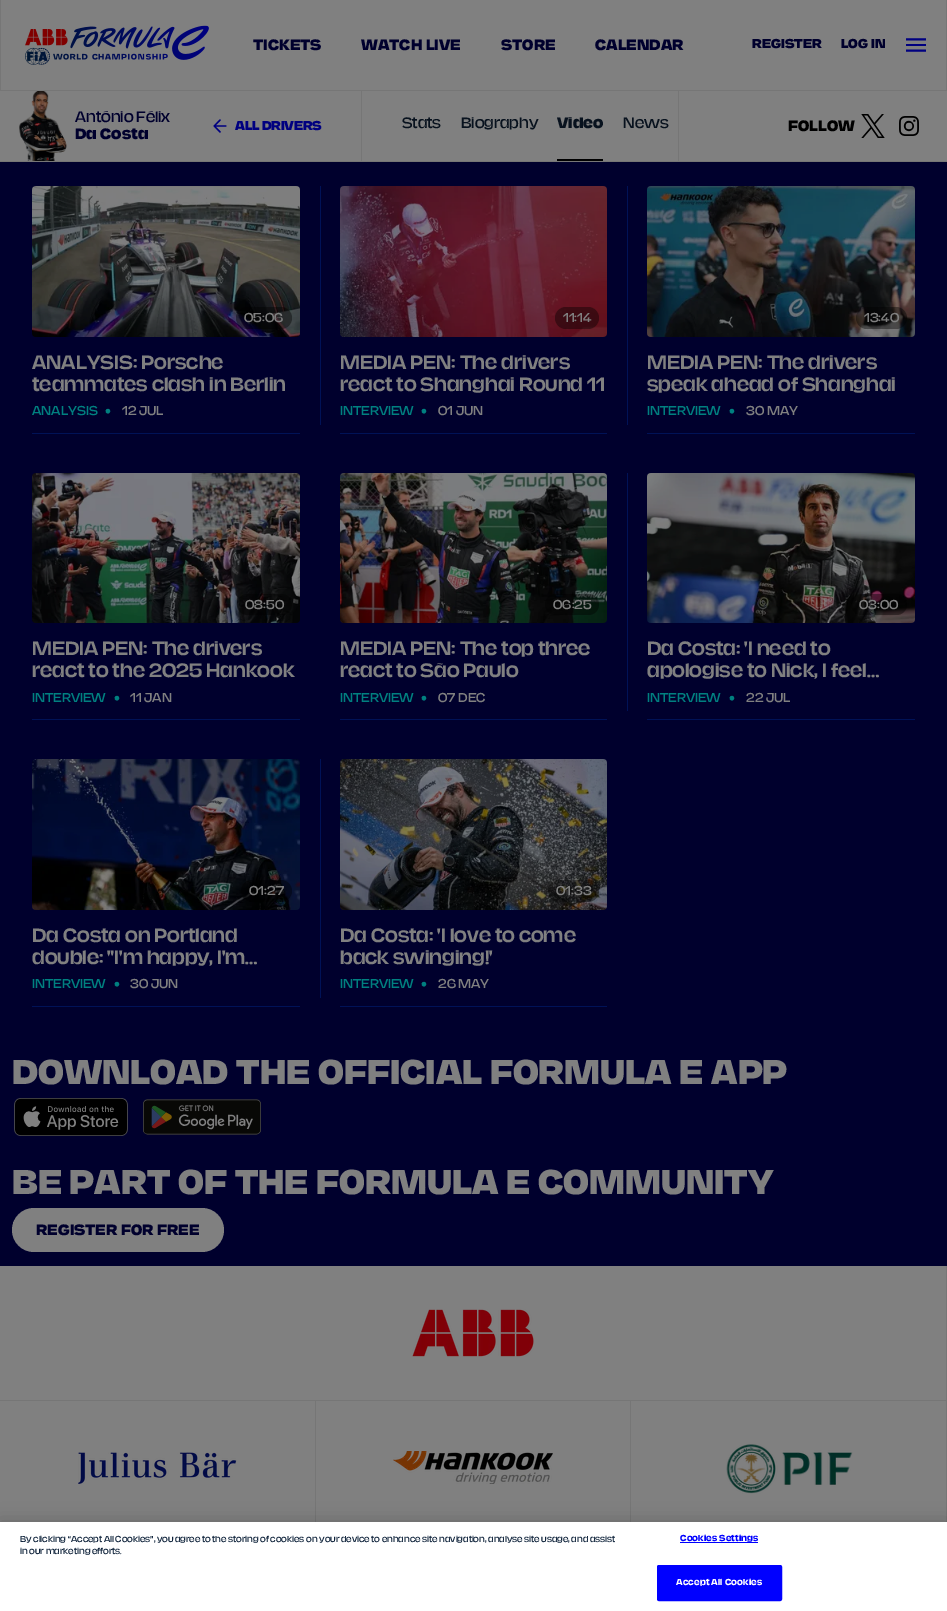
%!PS-Adobe-3.0
%%BoundingBox: 0 0 947 1611
%%LanguageLevel: 3
%%Pages: 1
%%EndComments
%%BeginProlog
/setink { dup -16 bitshift 255 div exch dup -8 bitshift 255 and 255 div exch 255 and 255 div setrgbcolor } def
/usefont { [ exch dup neg 0 0 3 -1 roll 0 0 ] selectfont } def
/setalpha { dup .setfillconstantalpha .setstrokeconstantalpha } def
/rrect { 5 dict begin { /r /h /w /y /x } { exch def } forall
  x r add y moveto x w add y 2 copy h add r arct x w add y h add x 1 index r arct
  x y h add x y r arct x y 2 copy exch w add exch r arct closepath end } def
/softshadow { 12 dict begin { /a /b /q /h /w /y /x } { exch def } forall gsave /was 0 def
  9 -2 -9 { dup b mul 4 div /e exch def 1 sub .425 mul 2.718 exch exp 1 add a .99 .min exch div /now exch def
    1 1 now sub 1 was sub div sub setalpha /was now def
    w h .min e 2 mul add 0 gt { x e sub y e sub w e 2 mul add h e 2 mul add
      q e add b .6 mul add w h .min 2 div e add .min 0 .max rrect fill } if } for grestore end } def
/drawimage { 5 dict begin { /h /w /y /x /name } { exch def } forall
  gsave x y translate w h scale
  w h 8 [w 0 0 h 0 0] name (r) file false 3 colorimage grestore end } def
%%EndProlog
%%BeginSetup
<< /PageSize [947 1611] /PageUsesTransparency true >> setpagedevice
%%EndSetup
%%Page: 1 1
0 .pushpdf14devicefilter
0 1611 translate 1 -1 scale
4 setmiterlimit
16#00002D setink
0 0 947 1611 rectfill
[
    [1 0 945 90 16#808080]
    [946 0 1 91 16#767676]
    [0 91 947 70 16#808080]
    [361 90 1 71 16#767676]
    [678 90 1 71 16#767676]
    [0 90 947 1 16#767676]
    [0 0 1 91 16#767676]
] { aload pop setink rectfill } forall
(img1.raw) 25 25 184 40 drawimage
/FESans-Bold 14 usefont
16#00002D setink
[
    [(TICKETS) 253 50]
    [(WATCH LIVE) 361 50]
    [(STORE) 501 50]
    [(CALENDAR) 595 50]
] { aload pop moveto show } forall
/FESans-Bold 12 usefont
752 48 moveto (REGISTER) show
841 48 moveto (LOG IN) show
(img2.raw) 906 38 20 14 drawimage
16#767676 setink
0 161 947 1 rectfill
(img3.raw) 19 91 48 70 drawimage
/FESans-Regular 14 usefont
16#00002D setink
75 122 moveto (António Félix) show
/FESans-Bold 14 usefont
75 139 moveto (Da Costa) show
(img4.raw) 213 119 14 14 drawimage
/FESans-Bold 12 usefont
16#000080 setink
235 130 moveto -0.25 0 (ALL DRIVERS) ashow
/FESans-Regular 14 usefont
16#08121E setink
402 128 moveto (Stats) show
461 128 moveto (Biography) show
/FESans-Bold 14 usefont
557 128 moveto (Video) show
16#000000 setink
557 159 46 2 rectfill
/FESans-Regular 14 usefont
16#08121E setink
623 128 moveto (News) show
/FESans-Bold 14 usefont
16#000000 setink
788 131 moveto (FOLLOW) show
(img5.raw) 861 114 24 24 drawimage
(img6.raw) 899 116 20 20 drawimage
(img7.raw) 32 186 268 151 drawimage
0.4 setalpha
236 307 56 22 11 rrect fill
/FESans-Regular 12 usefont
1 setalpha
16#808080 setink
244 322 moveto (05:06) show
/FESans-Medium 18 usefont
32 369 moveto (ANALYSIS: Porsche) show
32 391 moveto (teammates clash in Berlin) show
/FESans-Regular 12 usefont
16#008080 setink
32 415 moveto (ANALYSIS) show
105 415 moveto (•) show
16#808080 setink
122 415 moveto (12 JUL) show
16#001257 setink
32 433 268 1 rectfill
320 186 1 239 rectfill
(img8.raw) 340 186 267 151 drawimage
0.4 setalpha
16#000000 setink
555 307 44 22 11 rrect fill
1 setalpha
16#808080 setink
563 322 moveto (11:14) show
/FESans-Medium 18 usefont
340 369 moveto (MEDIA PEN: The drivers) show
340 391 moveto (react to Shanghai Round 11) show
/FESans-Regular 12 usefont
16#008080 setink
340 415 moveto (INTERVIEW) show
421 415 moveto (•) show
16#808080 setink
438 415 moveto (01 JUN) show
16#001257 setink
340 433 267 1 rectfill
627 186 1 239 rectfill
(img9.raw) 647 186 268 151 drawimage
0.4 setalpha
16#000000 setink
856 307 51 22 11 rrect fill
1 setalpha
16#808080 setink
864 322 moveto (13:40) show
/FESans-Medium 18 usefont
647 369 moveto (MEDIA PEN: The drivers) show
647 391 moveto (speak ahead of Shanghai) show
/FESans-Regular 12 usefont
16#008080 setink
647 415 moveto (INTERVIEW) show
729 415 moveto (•) show
16#808080 setink
746 415 moveto (30 MAY) show
16#001257 setink
647 433 268 1 rectfill
(img10.raw) 32 473 268 150 drawimage
0.4 setalpha
16#000000 setink
237 594 55 21 10.5 rrect fill
1 setalpha
16#808080 setink
245 609 moveto (08:50) show
/FESans-Medium 18 usefont
32 655 moveto (MEDIA PEN: The drivers) show
32 677 moveto (react to the 2025 Hankook) show
/FESans-Regular 12 usefont
16#008080 setink
32 702 moveto (INTERVIEW) show
114 702 moveto (•) show
16#808080 setink
130 702 moveto (11 JAN) show
16#001257 setink
32 719 268 1 rectfill
(img11.raw) 340 473 267 150 drawimage
0.4 setalpha
16#000000 setink
545 594 54 21 10.5 rrect fill
1 setalpha
16#808080 setink
553 609 moveto (06:25) show
/FESans-Medium 18 usefont
340 655 moveto (MEDIA PEN: The top three) show
340 677 moveto (react to São Paulo) show
/FESans-Regular 12 usefont
16#008080 setink
340 702 moveto (INTERVIEW) show
421 702 moveto (•) show
16#808080 setink
438 702 moveto (07 DEC) show
16#001257 setink
340 719 267 1 rectfill
627 473 1 238 rectfill
(img12.raw) 647 473 268 150 drawimage
0.4 setalpha
16#000000 setink
851 594 56 21 10.5 rrect fill
1 setalpha
16#808080 setink
859 609 moveto (03:00) show
/FESans-Medium 18 usefont
647 655 moveto (Da Costa: 'I need to) show
647 677 moveto (apologise to Nick, I feel…) show
/FESans-Regular 12 usefont
16#008080 setink
647 702 moveto (INTERVIEW) show
729 702 moveto (•) show
16#808080 setink
746 702 moveto (22 JUL) show
16#001257 setink
647 719 268 1 rectfill
(img13.raw) 32 759 268 151 drawimage
0.4 setalpha
16#000000 setink
241 880 51 22 11 rrect fill
1 setalpha
16#808080 setink
249 895 moveto (01:27) show
/FESans-Medium 18 usefont
32 942 moveto (Da Costa on Portland) show
32 964 moveto (double: "I'm happy, I'm…) show
/FESans-Regular 12 usefont
16#008080 setink
32 988 moveto (INTERVIEW) show
114 988 moveto (•) show
16#808080 setink
130 988 moveto (30 JUN) show
16#001257 setink
32 1006 268 1 rectfill
320 759 1 239 rectfill
(img14.raw) 340 759 267 151 drawimage
0.4 setalpha
16#000000 setink
548 880 51 22 11 rrect fill
1 setalpha
16#808080 setink
556 895 moveto (01:33) show
/FESans-Medium 18 usefont
340 942 moveto (Da Costa: 'I love to come) show
340 964 moveto (back swinging!') show
/FESans-Regular 12 usefont
16#008080 setink
340 988 moveto (INTERVIEW) show
421 988 moveto (•) show
16#808080 setink
438 988 moveto (26 MAY) show
16#001257 setink
340 1006 267 1 rectfill
16#808080 setink
0 1266 946 256 rectfill
/FESans-Bold 32 usefont
12 1084 moveto (DOWNLOAD THE OFFICIAL FORMULA E APP) show
(img15.raw) 14 1098 114 38 drawimage
(img16.raw) 143 1099 118 36 drawimage
12 1194 moveto (BE PART OF THE FORMULA E COMMUNITY) show
12 1208 212 44 22 rrect fill
gsave
13 1205 209 49 24.5 rrect clip newpath
13 1220 2 19 rectfill
grestore
/FESans-Bold 14 usefont
16#00002D setink
36 1235 moveto (REGISTER FOR FREE) show
16#767676 setink
946 1266 1 256 rectfill
0 1400 947 1 rectfill
(img17.raw) 412 1309 122 48 drawimage
315 1401 1 121 rectfill
(img18.raw) 78 1452 159 32 drawimage
630 1401 1 121 rectfill
(img19.raw) 393 1451 160 33 drawimage
(img20.raw) 726 1444 127 50 drawimage
16#000000 setink
0 1522 947 89 0 9 0.2 softshadow
16#FFFFFF setink
0 1522 947 89 rectfill
/FESans-Regular 8.13 usefont
16#0F233B setink
20 1542 moveto (By clicking “Accept All Cookies”, you agree to the storing of cookies on your device to enhance site navigation, analyse site usage, and assist) show
20 1554 moveto (in our marketing efforts.) show
/FESans-SemiBold 8.13 usefont
16#0000FF setink
680 1541 moveto 0.1 0 (Cookies Settings) ashow
680 1542 78 1 rectfill
657.5 1565.5 124 35 1.5 rrect gsave fill grestore
stroke
16#FFFFFF setink
676 1585 moveto 0.1 0 (Accept All Cookies) ashow
.poppdf14devicefilter showpage
%%EOF
